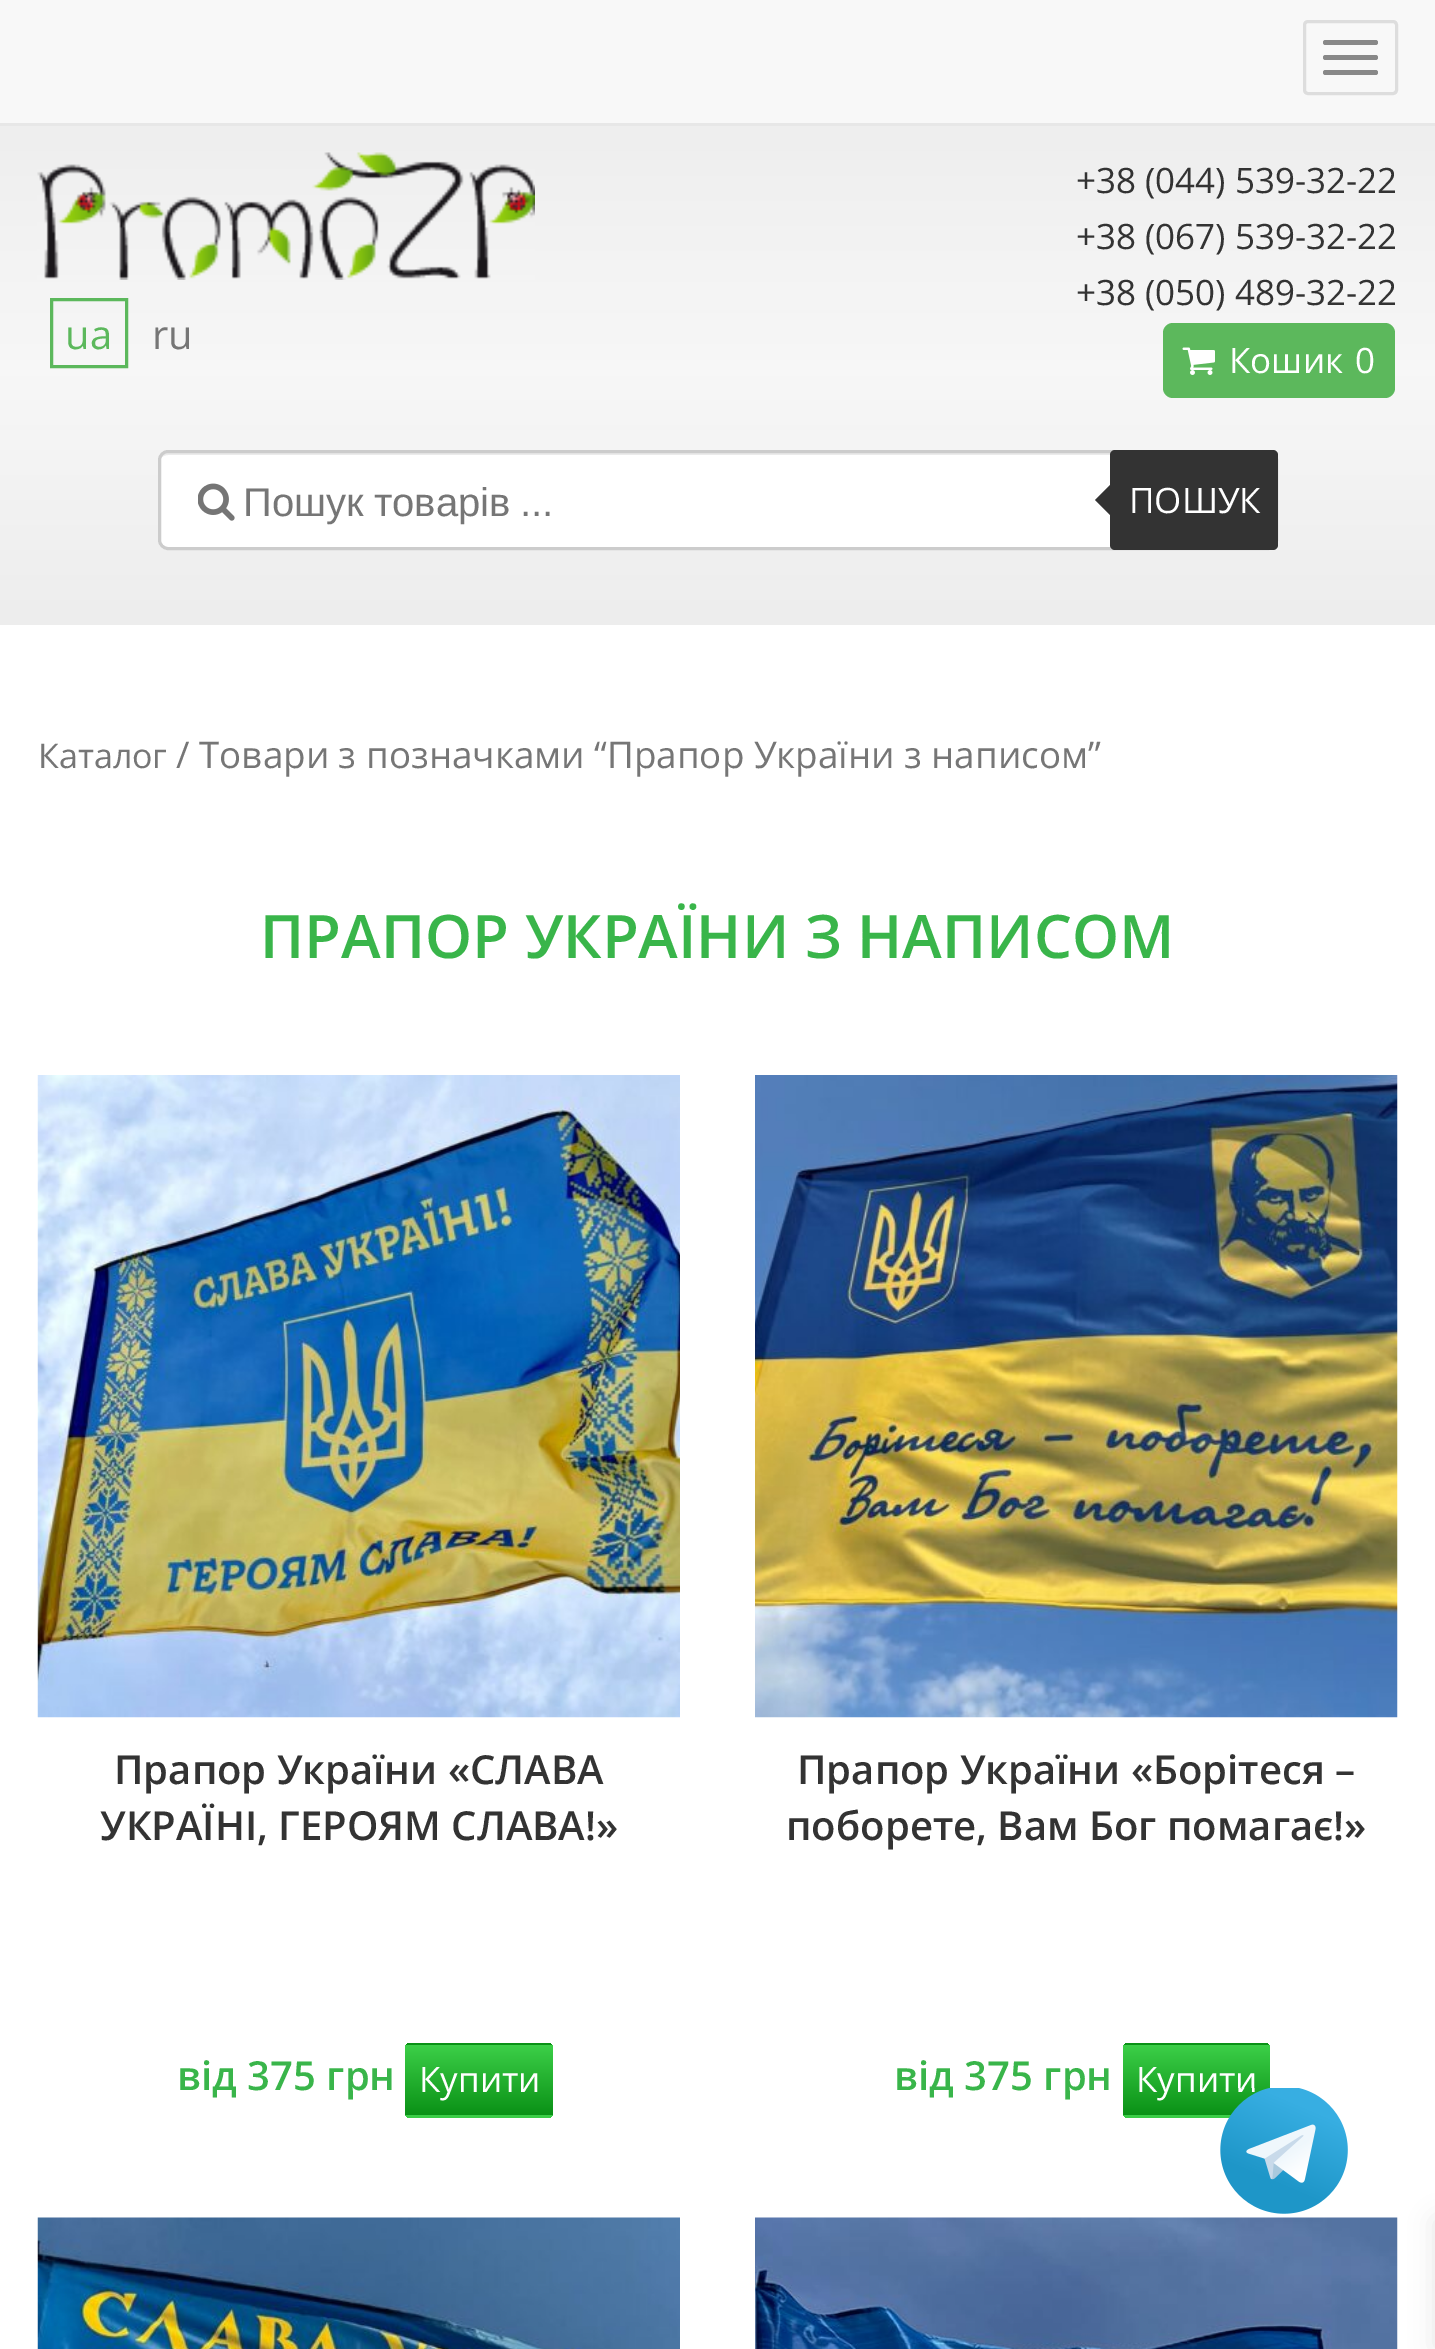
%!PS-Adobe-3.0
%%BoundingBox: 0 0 1435 2349
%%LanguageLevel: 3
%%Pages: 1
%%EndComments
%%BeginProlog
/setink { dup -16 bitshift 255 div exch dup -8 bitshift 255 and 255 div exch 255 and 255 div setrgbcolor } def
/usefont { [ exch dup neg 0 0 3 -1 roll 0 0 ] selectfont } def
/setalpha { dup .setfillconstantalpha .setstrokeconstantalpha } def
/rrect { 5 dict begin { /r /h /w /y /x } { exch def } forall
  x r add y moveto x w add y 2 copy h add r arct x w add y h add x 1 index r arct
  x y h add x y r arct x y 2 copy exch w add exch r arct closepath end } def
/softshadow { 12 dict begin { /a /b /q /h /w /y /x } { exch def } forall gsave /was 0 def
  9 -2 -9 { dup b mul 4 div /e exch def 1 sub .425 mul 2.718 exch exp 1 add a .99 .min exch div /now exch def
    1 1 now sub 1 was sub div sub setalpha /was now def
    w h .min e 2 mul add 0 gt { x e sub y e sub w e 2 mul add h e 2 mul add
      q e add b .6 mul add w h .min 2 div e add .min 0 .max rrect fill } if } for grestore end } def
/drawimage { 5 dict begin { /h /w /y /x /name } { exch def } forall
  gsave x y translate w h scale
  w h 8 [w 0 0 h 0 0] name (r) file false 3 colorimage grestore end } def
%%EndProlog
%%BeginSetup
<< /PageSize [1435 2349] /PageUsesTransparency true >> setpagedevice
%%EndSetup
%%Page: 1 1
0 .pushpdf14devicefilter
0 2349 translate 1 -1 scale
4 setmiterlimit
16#FFFFFF setink
0 0 1435 2349 rectfill
16#F8F8F8 setink
0 0 1435 123 rectfill
16#E7E7E7 setink
0 123 1435 3 rectfill
16#DDDDDD setink
3 setlinewidth
1304.5 21.5 92 72 3.5 rrect stroke
16#888888 setink
1323 40 55 5 2.5 rrect fill
1323 55 55 5 2.5 rrect fill
1323 70 55 5 2.5 rrect fill
gsave 0 126 moveto 1435 126 lineto 1435 625 lineto 0 625 lineto closepath clip newpath
<< /ShadingType 2 /ColorSpace /DeviceRGB /Coords [718 102 718 625] /Extend [true true] /Function << /FunctionType 3 /Domain [0 1] /Functions [<< /FunctionType 2 /Domain [0 1] /C0 [0.929 0.929 0.929] /C1 [0.969 0.969 0.969] /N 1 >> << /FunctionType 2 /Domain [0 1] /C0 [0.969 0.969 0.969] /C1 [0.929 0.929 0.929] /N 1 >>] /Bounds [0.51] /Encode [0 1 0 1] >> >> shfill grestore
(img1.raw) 37 152 498 128 drawimage
16#5CB85C setink
51.5 299.5 75 67 rectstroke
/OpenSans-Regular 40 usefont
65 349 moveto (ua) show
16#767676 setink
152 349 moveto (ru) show
/OpenSans-Regular 35 usefont
16#333333 setink
[
    [(+38 \(044\) 539-32-22) 1076 193]
    [(+38 \(067\) 539-32-22) 1076 249]
    [(+38 \(050\) 489-32-22) 1076 305]
] { aload pop moveto show } forall
16#5CB85C setink
1163 323 232 75 10 rrect fill
(img2.raw) 1182 347 33 28 drawimage
16#FFFFFF setink
1229 373 moveto (Кошик) show
1355 373 moveto (0) show
158 450 1120 100 10 rrect fill
16#EBEBEB setink
168 455 moveto 1268 455 lineto 1272 455 1275 458 1275 462 curveto 1275 461 lineto 1275 457 1271 453 1267 453 curveto 168 453 lineto 164 453 160 457 160 461 curveto 160 462 lineto 160 458 163 455 168 455 curveto closepath fill
16#CCCCCC setink
159.5 451.5 1117 97 8.5 rrect stroke
(img3.raw) 198 483 37 38 drawimage
/LiberationSans-Regular 40 usefont
16#767676 setink
243 516 moveto -1 0 32 (Пошук товарів ...) widthshow
16#333333 setink
1110 450 168 100 5 rrect fill
1115 480 moveto 1115 520 lineto 1095 500 lineto closepath fill
/OpenSans-Regular 35 usefont
16#FFFFFF setink
1129 513 moveto (ПОШУК) show
/OpenSans-Regular 34 usefont
16#767676 setink
38 768 moveto (Каталог) show
/OpenSans-Regular 36.8 usefont
176 768 moveto (/ Товари з позначками “Прапор України з написом”) show
/OpenSans-SemiBold 60 usefont
16#39B54A setink
260 958 moveto (ПРАПОР УКРАЇНИ З НАПИСОМ) show
(img4.raw) 37 1075 643 643 drawimage
/OpenSans-SemiBold 40 usefont
16#333333 setink
114 1784 moveto (Прапор України «СЛАВА) show
100 1840 moveto (УКРАЇНІ, ГЕРОЯМ СЛАВА!») show
16#39B54A setink
177 2090 moveto (від 375 грн) show
gsave
405 2043 148 75 5 rrect clip newpath
gsave 405 2043 moveto 553 2043 lineto 553 2045 lineto 405 2045 lineto closepath clip newpath
<< /ShadingType 2 /ColorSpace /DeviceRGB /Coords [479 1975 479 2045] /Extend [true true] /Function << /FunctionType 2 /Domain [0 1] /C0 [0.235 0.812 0.282] /C1 [0.039 0.569 0.086] /N 1 >> >> shfill grestore
gsave 405 2045 moveto 553 2045 lineto 553 2115 lineto 405 2115 lineto closepath clip newpath
<< /ShadingType 2 /ColorSpace /DeviceRGB /Coords [479 2045 479 2115] /Extend [true true] /Function << /FunctionType 2 /Domain [0 1] /C0 [0.235 0.812 0.282] /C1 [0.039 0.569 0.086] /N 1 >> >> shfill grestore
gsave 405 2115 moveto 553 2115 lineto 553 2118 lineto 405 2118 lineto closepath clip newpath
<< /ShadingType 2 /ColorSpace /DeviceRGB /Coords [479 2115 479 2185] /Extend [true true] /Function << /FunctionType 2 /Domain [0 1] /C0 [0.235 0.812 0.282] /C1 [0.039 0.569 0.086] /N 1 >> >> shfill grestore
grestore
/OpenSans-Regular 35 usefont
16#FFFFFF setink
419 2092 moveto (Купити) show
(img5.raw) 755 1075 643 643 drawimage
/OpenSans-SemiBold 40 usefont
16#333333 setink
797 1784 moveto (Прапор України «Борітеся –) show
786 1840 moveto (поборете, Вам Бог помагає!») show
16#39B54A setink
894 2090 moveto (від 375 грн) show
gsave
1123 2043 147 75 5 rrect clip newpath
gsave 1123 2043 moveto 1270 2043 lineto 1270 2045 lineto 1123 2045 lineto closepath clip newpath
<< /ShadingType 2 /ColorSpace /DeviceRGB /Coords [1196 1975 1196 2045] /Extend [true true] /Function << /FunctionType 2 /Domain [0 1] /C0 [0.235 0.812 0.282] /C1 [0.039 0.569 0.086] /N 1 >> >> shfill grestore
gsave 1123 2045 moveto 1270 2045 lineto 1270 2115 lineto 1123 2115 lineto closepath clip newpath
<< /ShadingType 2 /ColorSpace /DeviceRGB /Coords [1196 2045 1196 2115] /Extend [true true] /Function << /FunctionType 2 /Domain [0 1] /C0 [0.235 0.812 0.282] /C1 [0.039 0.569 0.086] /N 1 >> >> shfill grestore
gsave 1123 2115 moveto 1231 2115 lineto 1231 2118 lineto 1123 2118 lineto closepath clip newpath
<< /ShadingType 2 /ColorSpace /DeviceRGB /Coords [1196 2115 1196 2185] /Extend [true true] /Function << /FunctionType 2 /Domain [0 1] /C0 [0.235 0.812 0.282] /C1 [0.039 0.569 0.086] /N 1 >> >> shfill grestore
grestore
/OpenSans-Regular 35 usefont
16#FFFFFF setink
1136 2092 moveto (Купити) show
(img6.raw) 37 2217 643 132 drawimage
(img7.raw) 755 2217 643 132 drawimage
(img8.raw) 1220 2088 128 126 drawimage
16#000000 setink
1435 2220 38 128 0 12.5 0.1 softshadow
.poppdf14devicefilter showpage
%%EOF
